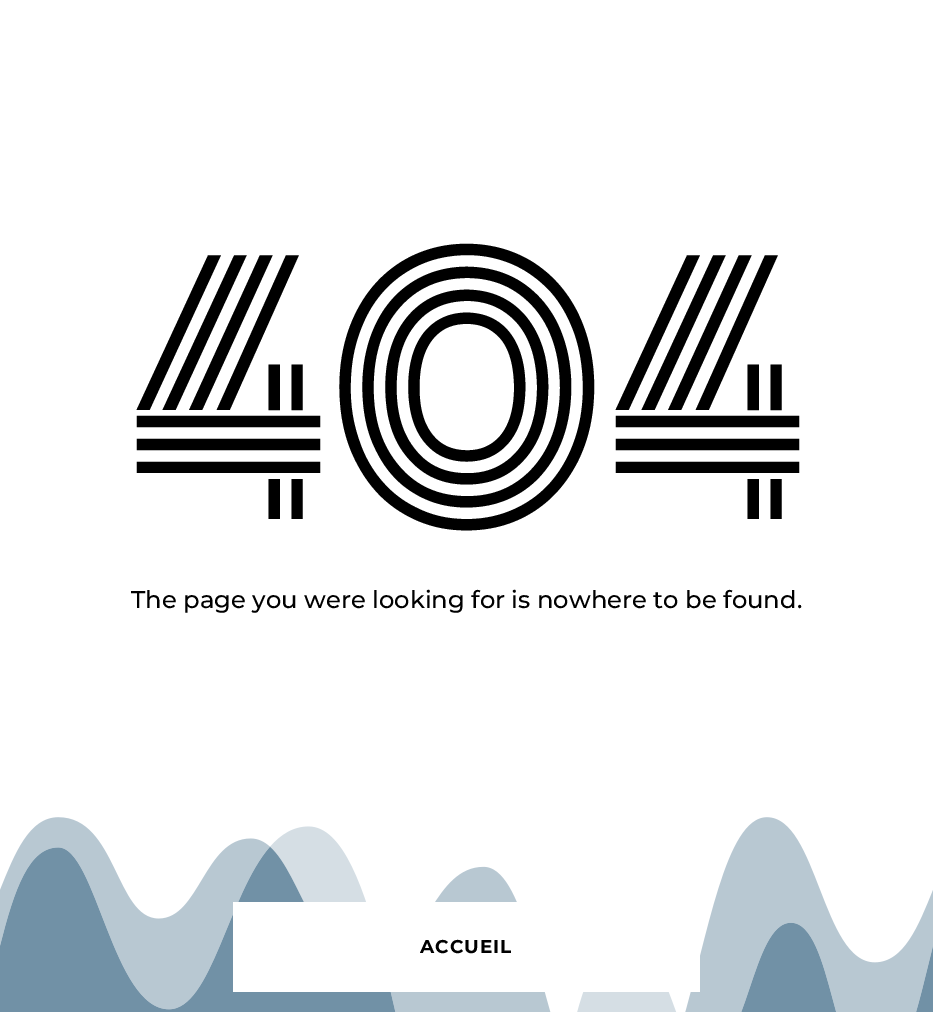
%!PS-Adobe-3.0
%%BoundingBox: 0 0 933 1012
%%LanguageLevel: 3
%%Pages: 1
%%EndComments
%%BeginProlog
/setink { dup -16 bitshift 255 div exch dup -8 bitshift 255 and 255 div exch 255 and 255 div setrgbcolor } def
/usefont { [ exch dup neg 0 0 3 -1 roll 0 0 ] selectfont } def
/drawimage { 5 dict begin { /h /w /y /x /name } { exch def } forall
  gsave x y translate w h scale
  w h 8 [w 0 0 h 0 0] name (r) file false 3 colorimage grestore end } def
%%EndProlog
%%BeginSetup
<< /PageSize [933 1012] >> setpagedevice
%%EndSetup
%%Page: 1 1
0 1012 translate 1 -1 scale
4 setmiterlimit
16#FFFFFF setink
0 0 933 1012 rectfill
/Monoton-Regular 327 usefont
16#000000 setink
126 519 moveto (404) show
/Montserrat-Medium 24.25 usefont
131 608 moveto (The page you were looking for is nowhere to be found.) show
(img1.raw) 0 817 933 195 drawimage
16#FFFFFF setink
233 902 467 90 rectfill
/Montserrat-Bold 18.5 usefont
16#000000 setink
420 953 moveto 1 0 (ACCUEIL) ashow
showpage
%%EOF
